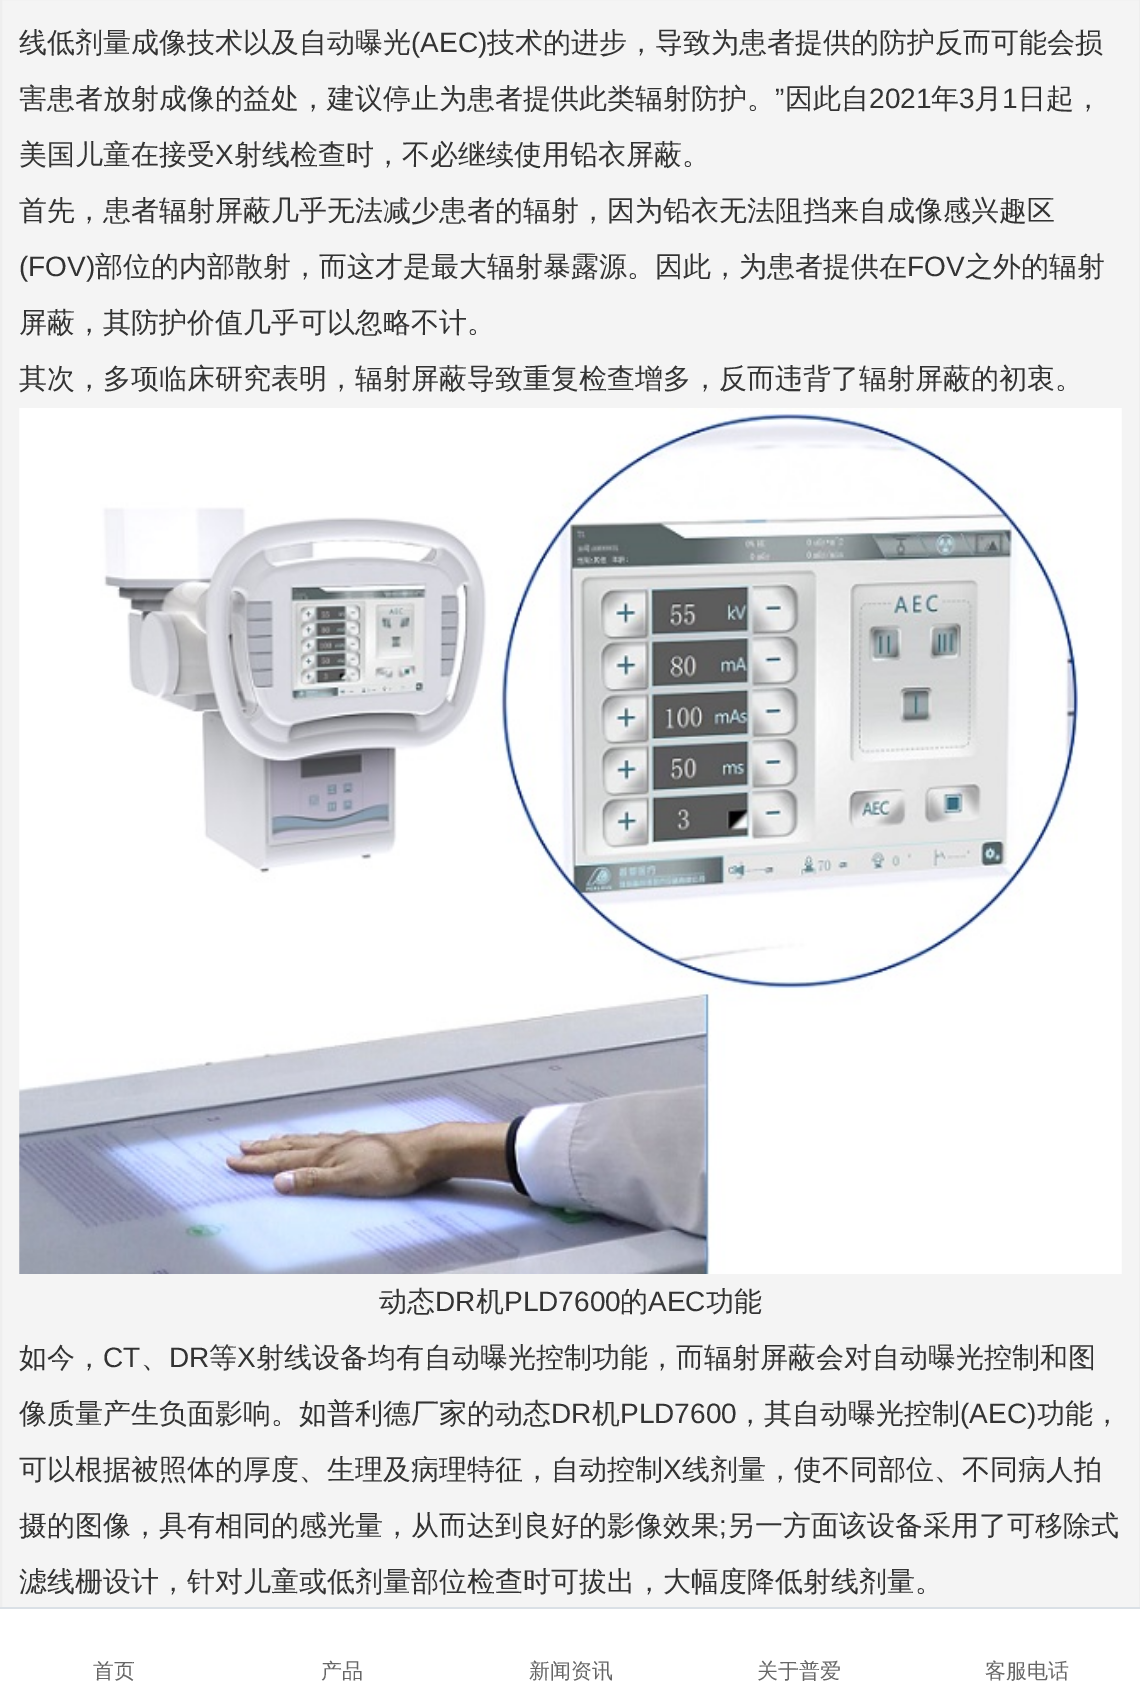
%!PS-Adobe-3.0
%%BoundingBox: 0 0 1140 1689
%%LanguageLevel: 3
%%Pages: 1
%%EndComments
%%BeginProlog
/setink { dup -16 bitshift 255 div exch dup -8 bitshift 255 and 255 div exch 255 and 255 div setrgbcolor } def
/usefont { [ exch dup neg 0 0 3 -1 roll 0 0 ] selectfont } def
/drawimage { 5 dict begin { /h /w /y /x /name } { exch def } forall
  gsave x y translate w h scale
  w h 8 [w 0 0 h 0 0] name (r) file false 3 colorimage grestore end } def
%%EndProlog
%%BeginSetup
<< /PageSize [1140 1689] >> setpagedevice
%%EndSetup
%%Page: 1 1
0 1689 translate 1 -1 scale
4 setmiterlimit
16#F4F4F4 setink
0 0 1140 1689 rectfill
16#EEEEEE setink
2 setlinewidth
1 -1 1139 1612 rectstroke
/WenQuanYiZenHei-Medium 28 usefont
16#333333 setink
19 52 moveto (线低剂量成像技术以及自动曝光) show
/LiberationSans-Regular 28 usefont
411 52 moveto (\(AEC\)) show
/WenQuanYiZenHei-Medium 28 usefont
487 52 moveto (技术的进步，导致为患者提供的防护反而可能会损) show
19 108 moveto (害患者放射成像的益处，建议停止为患者提供此类辐射防护。) show
/LiberationSans-Regular 28 usefont
775 108 moveto (”) show
/WenQuanYiZenHei-Medium 28 usefont
785 108 moveto (因此自) show
/LiberationSans-Regular 28 usefont
869 108 moveto (2021) show
/WenQuanYiZenHei-Medium 28 usefont
931 108 moveto (年) show
/LiberationSans-Regular 28 usefont
959 108 moveto (3) show
/WenQuanYiZenHei-Medium 28 usefont
974 108 moveto (月) show
/LiberationSans-Regular 28 usefont
1002 108 moveto (1) show
/WenQuanYiZenHei-Medium 28 usefont
1018 108 moveto (日起，) show
19 164 moveto (美国儿童在接受) show
/LiberationSans-Regular 28 usefont
215 164 moveto (X) show
/WenQuanYiZenHei-Medium 28 usefont
234 164 moveto (射线检查时，不必继续使用铅衣屏蔽。) show
19 220 moveto (首先，患者辐射屏蔽几乎无法减少患者的辐射，因为铅衣无法阻挡来自成像感兴趣区) show
/LiberationSans-Regular 28 usefont
19 276 moveto (\(FOV\)) show
/WenQuanYiZenHei-Medium 28 usefont
95 276 moveto (部位的内部散射，而这才是最大辐射暴露源。因此，为患者提供在) show
/LiberationSans-Regular 28 usefont
907 276 moveto (FOV) show
/WenQuanYiZenHei-Medium 28 usefont
[
    [(之外的辐射) 965 276]
    [(屏蔽，其防护价值几乎可以忽略不计。) 19 332]
    [(其次，多项临床研究表明，辐射屏蔽导致重复检查增多，反而违背了辐射屏蔽的初衷。) 19 388]
] { aload pop moveto show } forall
(img1.raw) 19 408 1103 866 drawimage
379 1311 moveto (动态) show
/LiberationSans-Regular 28 usefont
435 1311 moveto (DR) show
/WenQuanYiZenHei-Medium 28 usefont
476 1311 moveto (机) show
/LiberationSans-Regular 28 usefont
504 1311 moveto (PLD7600) show
/WenQuanYiZenHei-Medium 28 usefont
620 1311 moveto (的) show
/LiberationSans-Regular 28 usefont
648 1311 moveto (AEC) show
/WenQuanYiZenHei-Medium 28 usefont
706 1311 moveto (功能) show
19 1367 moveto (如今，) show
/LiberationSans-Regular 28 usefont
103 1367 moveto (CT) show
/WenQuanYiZenHei-Medium 28 usefont
141 1367 moveto (、) show
/LiberationSans-Regular 28 usefont
169 1367 moveto (DR) show
/WenQuanYiZenHei-Medium 28 usefont
209 1367 moveto (等) show
/LiberationSans-Regular 28 usefont
237 1367 moveto (X) show
/WenQuanYiZenHei-Medium 28 usefont
256 1367 moveto (射线设备均有自动曝光控制功能，而辐射屏蔽会对自动曝光控制和图) show
19 1423 moveto (像质量产生负面影响。如普利德厂家的动态) show
/LiberationSans-Regular 28 usefont
551 1423 moveto (DR) show
/WenQuanYiZenHei-Medium 28 usefont
592 1423 moveto (机) show
/LiberationSans-Regular 28 usefont
620 1423 moveto (PLD7600) show
/WenQuanYiZenHei-Medium 28 usefont
736 1423 moveto (，其自动曝光控制) show
/LiberationSans-Regular 28 usefont
960 1423 moveto (\(AEC\)) show
/WenQuanYiZenHei-Medium 28 usefont
1037 1423 moveto (功能，) show
19 1479 moveto (可以根据被照体的厚度、生理及病理特征，自动控制) show
/LiberationSans-Regular 28 usefont
663 1479 moveto (X) show
/WenQuanYiZenHei-Medium 28 usefont
682 1479 moveto (线剂量，使不同部位、不同病人拍) show
19 1535 moveto (摄的图像，具有相同的感光量，从而达到良好的影像效果) show
/LiberationSans-Regular 28 usefont
719 1535 moveto (;) show
/WenQuanYiZenHei-Medium 28 usefont
727 1535 moveto (另一方面该设备采用了可移除式) show
19 1591 moveto (滤线栅设计，针对儿童或低剂量部位检查时可拔出，大幅度降低射线剂量。) show
16#FFFFFF setink
0 1609 1140 80 rectfill
16#DAE0E6 setink
0 1607 1140 2 rectfill
/WenQuanYiZenHei-Medium 21 usefont
16#666666 setink
[
    [(首页) 93 1678]
    [(产品) 321 1678]
    [(新闻资讯) 529 1678]
    [(关于普爱) 757 1678]
    [(客服电话) 985 1678]
] { aload pop moveto show } forall
showpage
%%EOF
